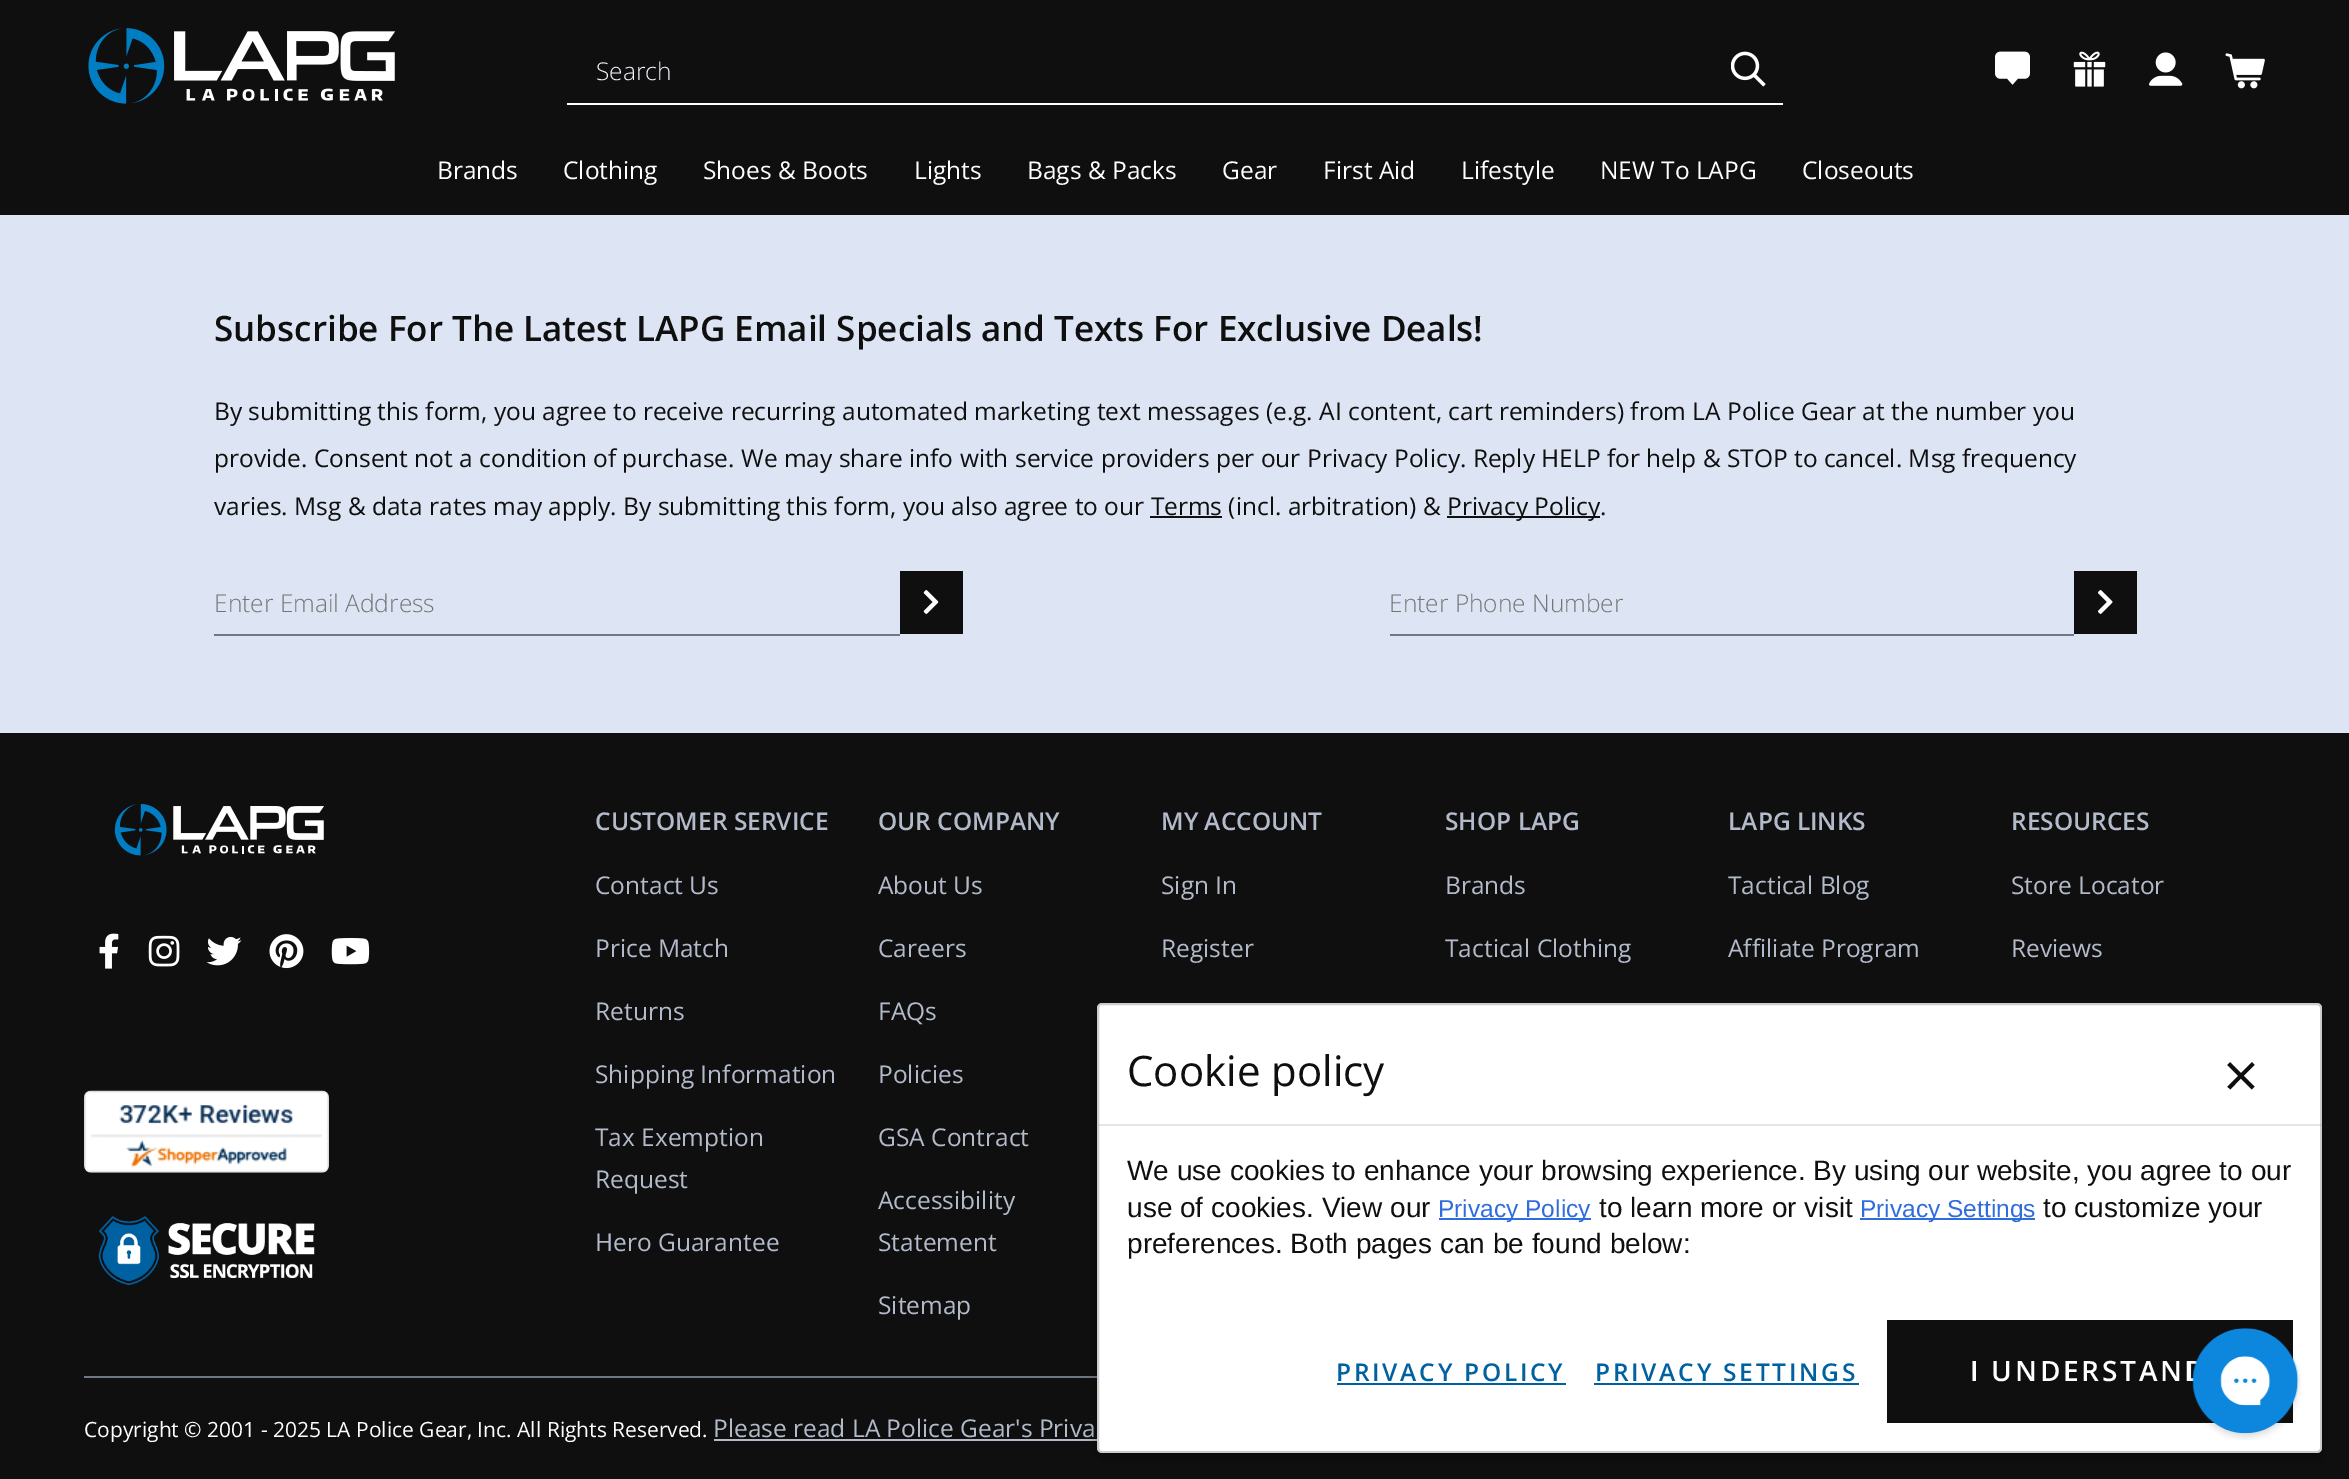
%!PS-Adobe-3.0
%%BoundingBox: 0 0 2349 1479
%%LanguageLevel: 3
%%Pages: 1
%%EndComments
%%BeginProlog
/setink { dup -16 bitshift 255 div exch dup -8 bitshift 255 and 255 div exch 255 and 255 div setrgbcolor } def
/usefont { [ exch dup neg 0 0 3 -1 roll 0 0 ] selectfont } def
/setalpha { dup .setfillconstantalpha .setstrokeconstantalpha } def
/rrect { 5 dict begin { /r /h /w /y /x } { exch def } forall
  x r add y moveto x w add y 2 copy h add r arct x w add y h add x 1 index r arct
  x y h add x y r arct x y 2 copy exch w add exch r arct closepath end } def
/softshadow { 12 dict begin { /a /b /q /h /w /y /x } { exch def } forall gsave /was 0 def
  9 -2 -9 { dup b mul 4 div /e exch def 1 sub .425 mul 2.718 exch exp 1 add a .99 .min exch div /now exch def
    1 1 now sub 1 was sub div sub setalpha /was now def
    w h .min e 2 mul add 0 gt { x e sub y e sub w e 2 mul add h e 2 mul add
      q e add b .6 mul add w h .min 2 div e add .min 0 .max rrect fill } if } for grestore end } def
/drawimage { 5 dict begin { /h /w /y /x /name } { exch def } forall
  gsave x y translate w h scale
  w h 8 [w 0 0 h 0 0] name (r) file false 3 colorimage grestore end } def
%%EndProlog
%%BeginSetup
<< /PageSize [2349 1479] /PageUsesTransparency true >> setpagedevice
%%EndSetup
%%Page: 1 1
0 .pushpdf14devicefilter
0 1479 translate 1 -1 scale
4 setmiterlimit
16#0F0F0F setink
0 0 2349 1479 rectfill
(img1.raw) 88 28 308 76 drawimage
16#FFFFFF setink
567 103 1216 2 rectfill
(img2.raw) 1731 51 35 36 drawimage
/OpenSans-Light 24.5 usefont
16#F3F6FC setink
596 80 moveto (Search) show
(img3.raw) 1995 51 35 34 drawimage
(img4.raw) 2073 51 33 36 drawimage
(img5.raw) 2149 52 34 34 drawimage
(img6.raw) 2225 53 40 36 drawimage
/OpenSans-Regular 24.5 usefont
16#FFFFFF setink
[
    [(Brands) 437 179]
    [(Clothing) 563 179]
    [(Shoes & Boots) 703 179]
    [(Lights) 914 179]
    [(Bags & Packs) 1027 179]
    [(Gear) 1222 179]
    [(First Aid) 1323 179]
    [(Lifestyle) 1461 179]
    [(NEW To LAPG) 1600 179]
    [(Closeouts) 1802 179]
] { aload pop moveto show } forall
16#DDE5F4 setink
0 215 2349 518 rectfill
/OpenSans-SemiBold 35 usefont
16#0F0F0F setink
214 341 moveto (Subscribe For The Latest LAPG Email Specials and Texts For Exclusive Deals!) show
/OpenSans-Regular 24.5 usefont
[
    [(By submitting this form, you agree to receive recurring automated marketing text messages \(e.g. AI content, cart reminders\) from LA Police Gear at the number you) 214 420]
    [(provide. Consent not a condition of purchase. We may share info with service providers per our Privacy Policy. Reply HELP for help & STOP to cancel. Msg frequency) 214 467]
    [(varies. Msg & data rates may apply. By submitting this form, you also agree to our Terms \(incl. arbitration\) &) 214 515]
] { aload pop moveto show } forall
1447 516 153 2 rectfill
1447 515 moveto (Privacy Policy.) show
1150 516 72 2 rectfill
16#707784 setink
214 634 686 2 rectfill
/OpenSans-Light 24.5 usefont
16#757575 setink
214 612 moveto (Enter Email Address) show
16#0F0F0F setink
900 571 63 63 rectfill
(img7.raw) 923 590 16 24 drawimage
16#707784 setink
1390 634 684 2 rectfill
16#757575 setink
1389 612 moveto (Enter Phone Number) show
16#0F0F0F setink
2074 571 63 63 rectfill
(img8.raw) 2098 590 15 24 drawimage
(img9.raw) 114 804 210 52 drawimage
(img10.raw) 99 933 20 36 drawimage
(img11.raw) 148 935 32 32 drawimage
(img12.raw) 206 936 36 30 drawimage
(img13.raw) 269 934 35 35 drawimage
(img14.raw) 331 938 39 27 drawimage
/OpenSans-SemiBold 24.5 usefont
16#B3BBCB setink
595 830 moveto (CUSTOMER SERVICE) show
/OpenSans-Regular 24.5 usefont
[
    [(Contact Us) 595 894]
    [(Price Match) 595 957]
    [(Returns) 595 1020]
    [(Shipping Information) 595 1083]
    [(Tax Exemption) 595 1146]
    [(Request) 595 1188]
    [(Hero Guarantee) 595 1251]
] { aload pop moveto show } forall
/OpenSans-SemiBold 24.5 usefont
878 830 moveto (OUR COMPANY) show
/OpenSans-Regular 24.5 usefont
[
    [(About Us) 878 894]
    [(Careers) 878 957]
    [(FAQs) 878 1020]
    [(Policies) 878 1083]
    [(GSA Contract) 878 1146]
    [(Accessibility) 878 1209]
    [(Statement) 878 1251]
    [(Sitemap) 878 1314]
] { aload pop moveto show } forall
/OpenSans-SemiBold 24.5 usefont
1161 830 moveto (MY ACCOUNT) show
/OpenSans-Regular 24.5 usefont
1161 894 moveto (Sign In) show
1161 957 moveto (Register) show
/OpenSans-SemiBold 24.5 usefont
1445 830 moveto (SHOP LAPG) show
/OpenSans-Regular 24.5 usefont
1445 894 moveto (Brands) show
1445 957 moveto (Tactical Clothing) show
/OpenSans-SemiBold 24.5 usefont
1728 830 moveto (LAPG LINKS) show
/OpenSans-Regular 24.5 usefont
1728 894 moveto (Tactical Blog) show
1728 957 moveto (Affiliate Program) show
/OpenSans-SemiBold 24.5 usefont
2011 830 moveto (RESOURCES) show
/OpenSans-Regular 24.5 usefont
2011 894 moveto (Store Locator) show
2011 957 moveto (Reviews) show
(img15.raw) 84 1090 245 83 drawimage
(img16.raw) 98 1216 217 69 drawimage
16#707784 setink
84 1376 1013 2 rectfill
/OpenSans-Regular 21 usefont
16#FFFFFF setink
84 1437 moveto (Copyright © 2001 - 2025 LA Police Gear, Inc. All Rights Reserved.) show
/OpenSans-Regular 24.5 usefont
16#B3BBCB setink
713 1437 moveto (Please read LA Police Gear's Priva) show
714 1439 383 2 rectfill
16#000000 setink
1097 1010 1225 450 5 7 0.3 softshadow
16#FFFFFF setink
1097 1003 1225 450 5 rrect fill
0.2 setalpha
16#000000 setink
2 setlinewidth
1098 1004 1223 448 4 rrect stroke
0.1 setalpha
1099 1124 1222 2 rectfill
/OpenSans-Regular 42 usefont
1 setalpha
16#0F0F0F setink
1127 1086 moveto (Cookie policy) show
/OpenSans-Regular 63 usefont
2223 1098 moveto (×) show
/LiberationSans-Regular 28 usefont
1127 1180 moveto (We use cookies to enhance your browsing experience. By using our website, you agree to our) show
1127 1217 moveto (use of cookies. View our) show
16#2F6CDD setink
1439 1218 152 2 rectfill
/LiberationSans-Regular 24.5 usefont
1438 1217 moveto (Privacy Policy) show
/LiberationSans-Regular 28 usefont
16#0F0F0F setink
1599 1217 moveto (to learn more or visit) show
16#2F6CDD setink
1860 1218 175 2 rectfill
/LiberationSans-Regular 24.5 usefont
1860 1217 moveto (Privacy Settings) show
/LiberationSans-Regular 28 usefont
16#0F0F0F setink
2043 1217 moveto (to customize your) show
1127 1253 moveto (preferences. Both pages can be found below:) show
/OpenSans-SemiBold 24.5 usefont
16#0061A1 setink
1336 1381 moveto 2.75 0 (PRIVACY POLICY) ashow
1337 1383 229 2 rectfill
1595 1381 moveto 2.75 0 (PRIVACY SETTINGS) ashow
1594 1383 265 2 rectfill
16#0F0F0F setink
1887 1320 406 103 rectfill
/OpenSans-SemiBold 28 usefont
16#FFFFFF setink
1970 1381 moveto 2.75 0 (I UNDERSTAND) ashow
(img17.raw) 2189 1328 112 112 drawimage
.poppdf14devicefilter showpage
%%EOF
